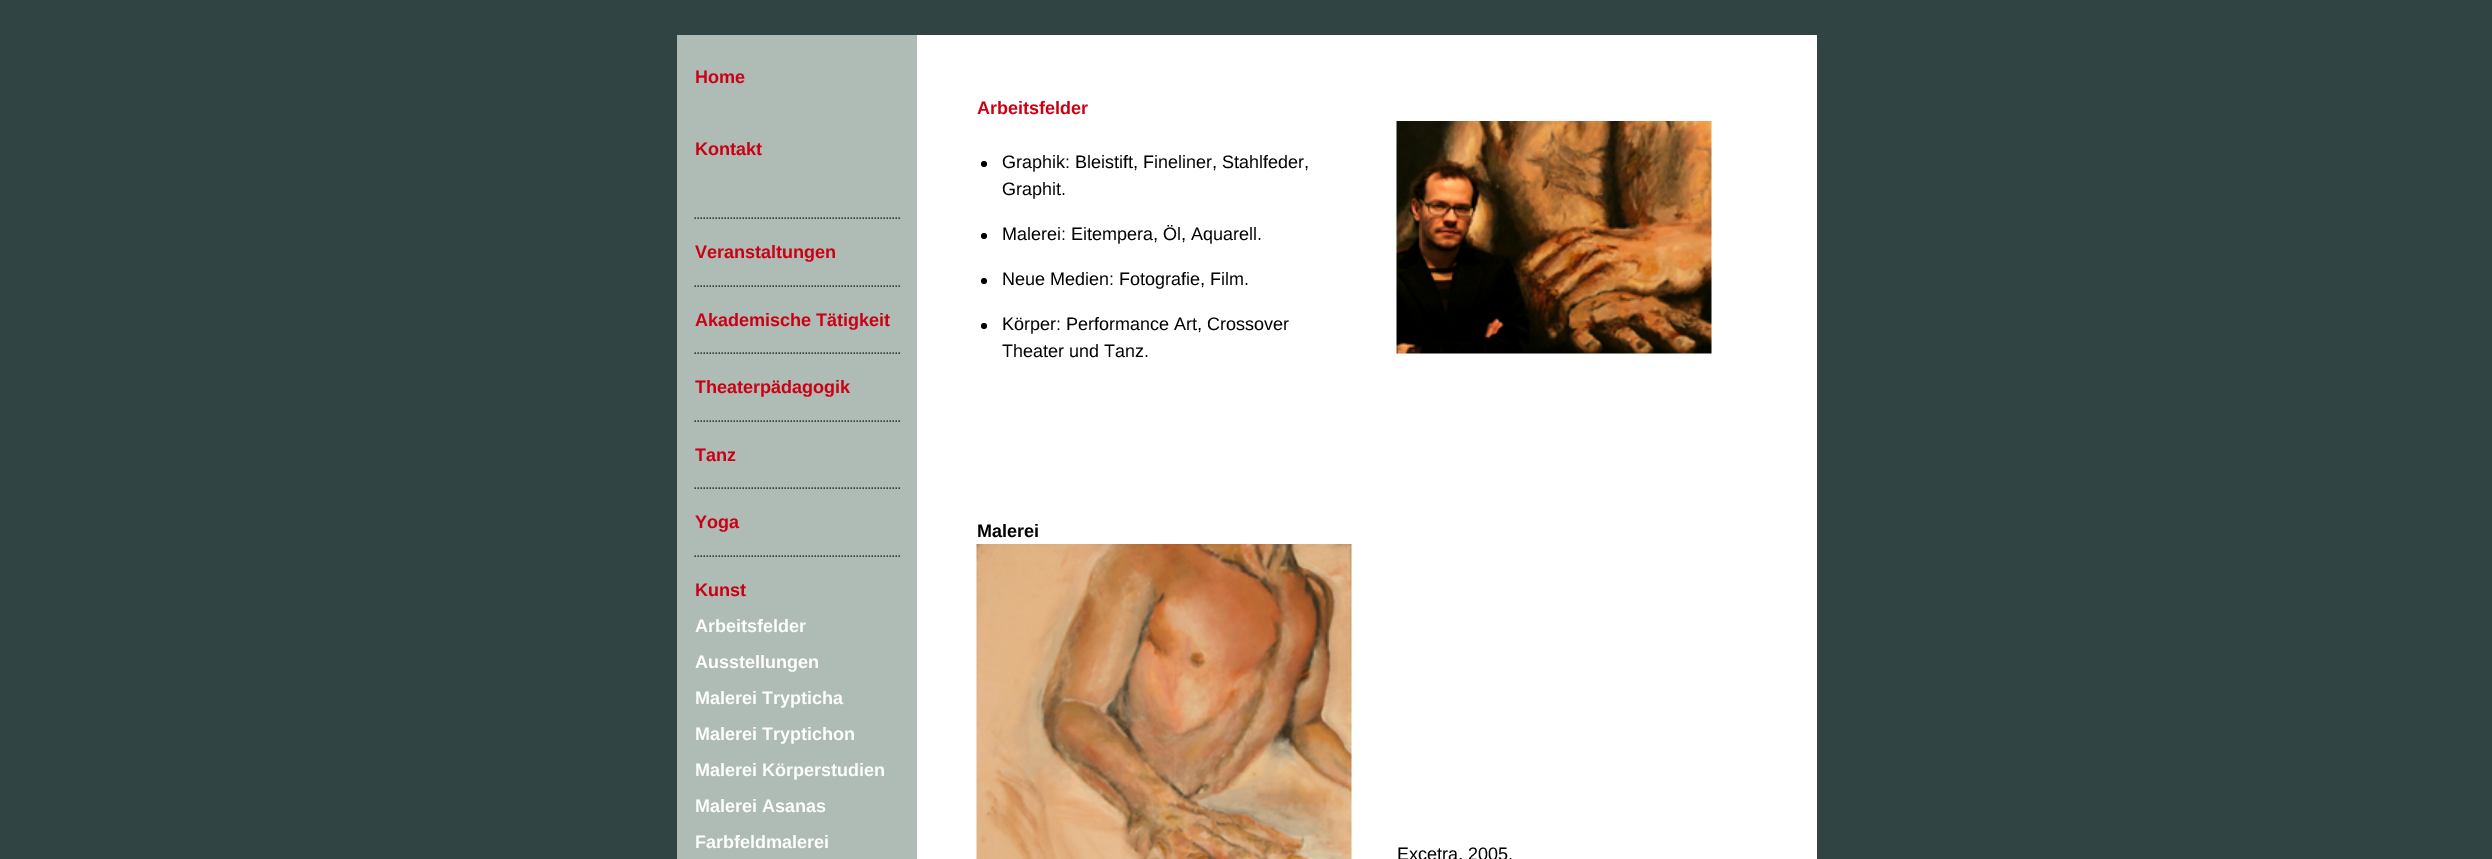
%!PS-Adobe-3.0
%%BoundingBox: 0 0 2492 859
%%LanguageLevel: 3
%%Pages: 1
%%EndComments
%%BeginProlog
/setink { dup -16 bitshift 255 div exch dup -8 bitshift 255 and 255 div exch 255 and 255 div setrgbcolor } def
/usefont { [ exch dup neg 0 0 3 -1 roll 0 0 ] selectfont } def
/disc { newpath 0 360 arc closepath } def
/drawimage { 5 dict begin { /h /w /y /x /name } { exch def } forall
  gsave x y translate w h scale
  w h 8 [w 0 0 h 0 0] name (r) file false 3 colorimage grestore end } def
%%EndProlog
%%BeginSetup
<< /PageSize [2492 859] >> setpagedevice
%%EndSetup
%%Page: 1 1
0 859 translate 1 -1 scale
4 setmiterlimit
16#304444 setink
0 0 2492 859 rectfill
16#AEBCB5 setink
677 35 240 824 rectfill
/LiberationSans-Bold 18 usefont
16#CB0015 setink
695 83 moveto (Home) show
695 155 moveto (Kontakt) show
16#304444 setink
1.5 setlinewidth
[1.5 1.5] 0 setdash
694.5 218 moveto 901.5 218 lineto stroke
16#CB0015 setink
695 258 moveto (Veranstaltungen) show
16#304444 setink
694.5 286 moveto 901.5 286 lineto stroke
16#CB0015 setink
695 326 moveto (Akademische Tätigkeit) show
16#304444 setink
694.5 353 moveto 901.5 353 lineto stroke
16#CB0015 setink
695 393 moveto (Theaterpädagogik) show
16#304444 setink
694.5 421 moveto 901.5 421 lineto stroke
16#CB0015 setink
695 461 moveto (Tanz) show
16#304444 setink
694.5 488 moveto 901.5 488 lineto stroke
16#CB0015 setink
695 528 moveto (Yoga) show
16#304444 setink
694.5 556 moveto 901.5 556 lineto stroke
16#CB0015 setink
695 596 moveto (Kunst) show
16#FFFFFF setink
[
    [(Arbeitsfelder) 695 632]
    [(Ausstellungen) 695 668]
    [(Malerei Trypticha) 695 704]
    [(Malerei Tryptichon) 695 740]
    [(Malerei Körperstudien) 695 776]
    [(Malerei Asanas) 695 812]
    [(Farbfeldmalerei) 695 848]
] { aload pop moveto show } forall
917 35 900 824 rectfill
16#CB0015 setink
977 114 moveto (Arbeitsfelder) show
16#000000 setink
984 164 3 disc fill
/LiberationSans-Regular 18 usefont
1002 168 moveto (Graphik: Bleistift, Fineliner, Stahlfeder,) show
1002 195 moveto (Graphit.) show
984 236 3 disc fill
1002 240 moveto (Malerei: Eitempera, Öl, Aquarell.) show
984 281 3 disc fill
1002 285 moveto (Neue Medien: Fotografie, Film.) show
984 326 3 disc fill
1002 330 moveto (Körper: Performance Art, Crossover) show
1002 357 moveto (Theater und Tanz.) show
/LiberationSans-Bold 18 usefont
977 537 moveto (Malerei) show
(img1.raw) 976 544 376 315 drawimage
(img2.raw) 1396 121 316 233 drawimage
/LiberationSans-Regular 18 usefont
1397 860 moveto (Excetra, 2005.) show
showpage
%%EOF
